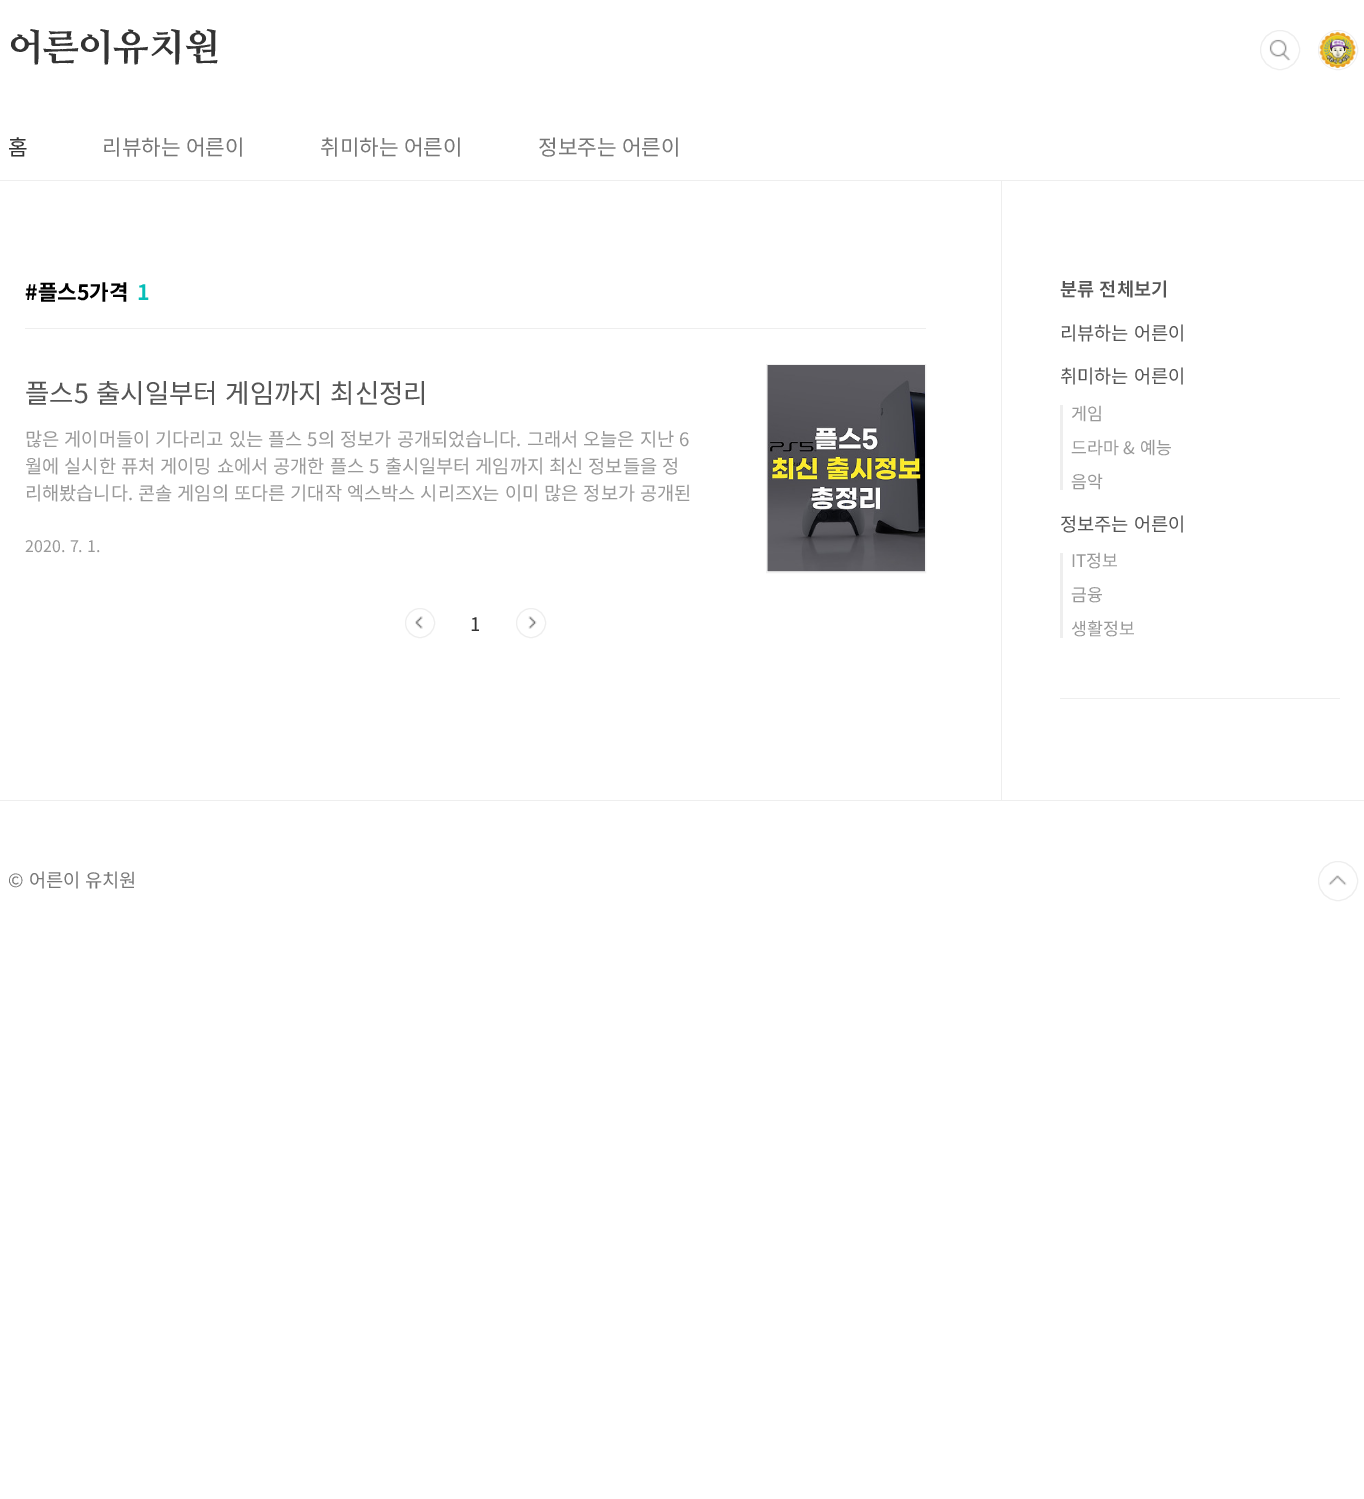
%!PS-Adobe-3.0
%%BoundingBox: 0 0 1364 1499
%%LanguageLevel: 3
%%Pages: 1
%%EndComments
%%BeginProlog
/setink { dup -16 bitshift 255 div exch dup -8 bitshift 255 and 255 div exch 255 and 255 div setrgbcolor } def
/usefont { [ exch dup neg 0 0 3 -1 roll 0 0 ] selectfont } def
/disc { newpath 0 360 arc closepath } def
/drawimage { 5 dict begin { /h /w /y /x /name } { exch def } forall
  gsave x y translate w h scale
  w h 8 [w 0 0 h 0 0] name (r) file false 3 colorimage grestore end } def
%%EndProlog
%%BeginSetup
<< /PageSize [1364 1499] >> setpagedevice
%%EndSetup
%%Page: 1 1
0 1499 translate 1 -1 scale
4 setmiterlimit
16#FFFFFF setink
0 0 1364 1499 rectfill
16#EEEEEE setink
0 180 1364 1 rectfill
/NanumMyeongjo-ExtraBold 37.25 usefont
16#333333 setink
8 60 moveto -0.25 0 (어른이유치원) ashow
16#EEEEEE setink
1280 50 18.5 disc stroke
16#FFFFFF setink
1280 50 20 disc fill
(img1.raw) 1269 39 22 22 drawimage
16#EEEEEE setink
1280 50 19.5 disc stroke
1338 50 19.5 disc stroke
(img2.raw) 1319 31 37 38 drawimage
/NotoSansKR-Regular 21.25 usefont
16#333333 setink
8 155 moveto (홈) show
16#777777 setink
102 155 moveto 1 0 32 (리뷰하는 어른이) widthshow
320 155 moveto 1 0 32 (취미하는 어른이) widthshow
538 155 moveto 1 0 32 (정보주는 어른이) widthshow
16#EEEEEE setink
25 328 901 1 rectfill
/NotoSansKR-Bold 21.25 usefont
16#000000 setink
25 300 moveto (#플스5가격) show
16#04BEB8 setink
137 300 moveto (1) show
/NotoSansKR-Regular 26.5 usefont
16#555555 setink
25 403 moveto 1.5 0 32 (플스5 출시일부터 게임까지 최신정리) widthshow
16#F1F1F1 setink
766.5 364.5 159 208 rectstroke
(img3.raw) 767 365 158 207 drawimage
/NotoSansKR-Regular 18.6 usefont
16#999999 setink
25 446 moveto 1 0 32 (많은 게이머들이 기다리고 있는 플스 5의 정보가 공개되었습니다. 그래서 오늘은 지난 6) widthshow
25 473 moveto 1 0 32 (월에 실시한 퓨처 게이밍 쇼에서 공개한 플스 5 출시일부터 게임까지 최신 정보들을 정) widthshow
25 500 moveto 1 0 32 (리해봤습니다. 콘솔 게임의 또다른 기대작 엑스박스 시리즈X는 이미 많은 정보가 공개된) widthshow
/NotoSansKR-Regular 16 usefont
25 552 moveto 1 0 32 (2020. 7. 1.) widthshow
(img4.raw) 415 616 8 13 drawimage
16#EEEEEE setink
420 623 14.5 disc stroke
/NotoSansKR-Regular 18.6 usefont
16#333333 setink
470 631 moveto (1) show
(img5.raw) 528 616 9 13 drawimage
16#EEEEEE setink
531 623 14.5 disc stroke
1001 181 1 619 rectfill
/NotoSansKR-SemiBold 18.6 usefont
16#555555 setink
1060 296 moveto 1 0 32 (분류 전체보기) widthshow
/NotoSansKR-Regular 18.6 usefont
1060 340 moveto 1 0 32 (리뷰하는 어른이) widthshow
1060 383 moveto 1 0 32 (취미하는 어른이) widthshow
16#EEEEEE setink
1060 405 3 85 rectfill
/NotoSansKR-Regular 17.25 usefont
16#999999 setink
1071 420 moveto (게임) show
1071 454 moveto 1 0 32 (드라마 & 예능) widthshow
1071 488 moveto (음악) show
/NotoSansKR-Regular 18.6 usefont
16#555555 setink
1060 531 moveto 1 0 32 (정보주는 어른이) widthshow
16#EEEEEE setink
1060 553 3 85 rectfill
/NotoSansKR-Regular 17.25 usefont
16#999999 setink
[
    [(IT정보) 1071 567]
    [(금융) 1071 601]
    [(생활정보) 1071 635]
] { aload pop moveto show } forall
16#EEEEEE setink
1060 698 280 1 rectfill
0 800 1364 1 rectfill
/NotoSansKR-Regular 18.6 usefont
16#777777 setink
8 887 moveto 1 0 32 (© 어른이 유치원) widthshow
(img6.raw) 1328 875 19 11 drawimage
16#EEEEEE setink
1338 881 19.5 disc stroke
showpage
%%EOF
